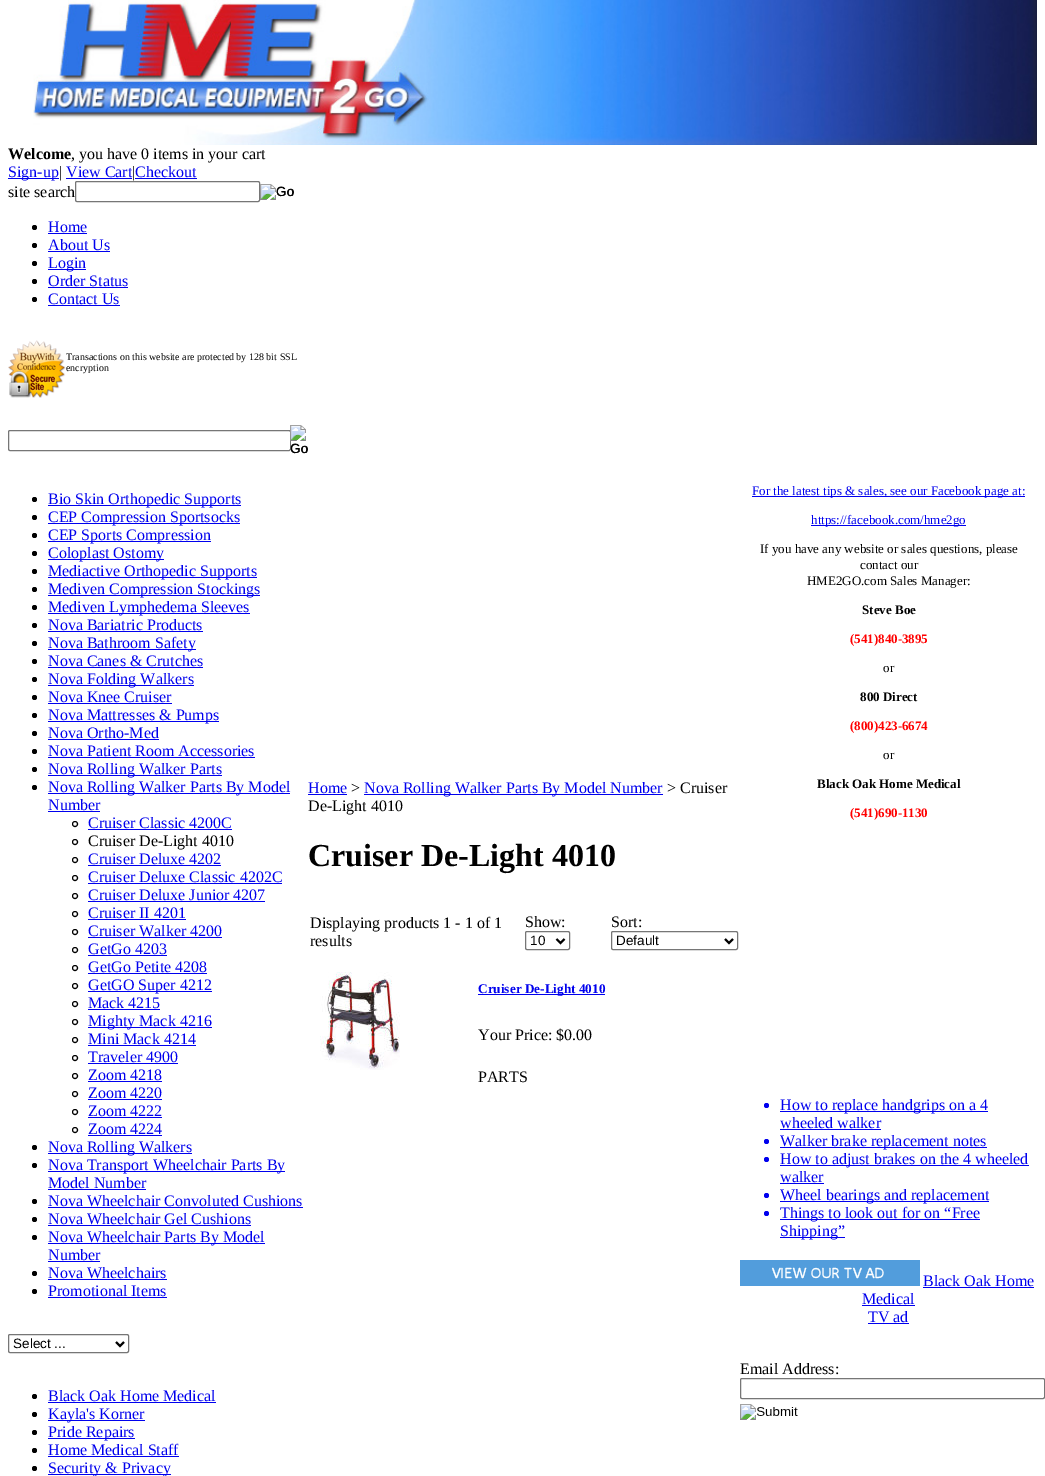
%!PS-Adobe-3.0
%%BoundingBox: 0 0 1045 1476
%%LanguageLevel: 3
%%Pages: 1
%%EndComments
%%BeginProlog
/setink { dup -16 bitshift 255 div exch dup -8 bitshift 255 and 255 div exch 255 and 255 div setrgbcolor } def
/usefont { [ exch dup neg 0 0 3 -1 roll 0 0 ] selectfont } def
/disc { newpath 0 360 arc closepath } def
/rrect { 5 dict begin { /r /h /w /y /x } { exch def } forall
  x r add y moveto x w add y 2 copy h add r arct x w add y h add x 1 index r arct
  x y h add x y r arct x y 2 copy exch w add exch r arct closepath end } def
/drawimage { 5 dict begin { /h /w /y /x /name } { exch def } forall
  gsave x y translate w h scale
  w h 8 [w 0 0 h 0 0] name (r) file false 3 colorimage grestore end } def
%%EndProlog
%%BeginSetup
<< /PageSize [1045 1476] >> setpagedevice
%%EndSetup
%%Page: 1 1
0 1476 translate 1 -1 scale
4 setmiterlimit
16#FFFFFF setink
0 0 1045 1476 rectfill
(img1.raw) 33 0 1004 145 drawimage
/LiberationSerif-Bold 16 usefont
16#000000 setink
8 159 moveto (Welcome) show
/LiberationSerif-Regular 16 usefont
71 159 moveto (, you have 0 items in your cart) show
16#0000EE setink
8 178 51 1 rectfill
8 177 moveto (Sign-up) show
16#000000 setink
59 177 moveto (|) show
16#0000EE setink
66 177 moveto (View Cart) show
66 178 66 1 rectfill
16#000000 setink
132 177 moveto (|) show
16#0000EE setink
135 177 moveto (Checkout) show
135 178 62 1 rectfill
16#000000 setink
8 197 moveto (site search) show
16#767676 setink
75.5 181.5 184 20 1.5 rrect stroke
(img2.raw) 260 184 34 16 drawimage
/LiberationSans-Regular 13.5 usefont
16#000000 setink
276 196 moveto (Go) show
34.5 227.5 2.5 disc fill
/LiberationSerif-Regular 16 usefont
16#0000EE setink
48 232 moveto (Home) show
48 233 39 1 rectfill
16#000000 setink
34.5 245.5 2.5 disc fill
16#0000EE setink
48 250 moveto (About Us) show
48 251 62 1 rectfill
16#000000 setink
34.5 263.5 2.5 disc fill
16#0000EE setink
48 269 38 1 rectfill
48 268 moveto (Login) show
16#000000 setink
34.5 281.5 2.5 disc fill
16#0000EE setink
48 286 moveto (Order Status) show
48 287 80 1 rectfill
16#000000 setink
34.5 299.5 2.5 disc fill
16#0000EE setink
48 304 moveto (Contact Us) show
48 305 72 1 rectfill
(img3.raw) 8 340 58 58 drawimage
/LiberationSerif-Regular 10 usefont
16#000000 setink
66 360 moveto (Transactions on this website are protected by 128 bit SSL) show
66 371 moveto (encryption) show
16#767676 setink
8.5 430.5 282 20 1.5 rrect stroke
(img4.raw) 290 425 18 28 drawimage
/LiberationSans-Regular 13.5 usefont
16#000000 setink
290 453 moveto (Go) show
34.5 499.5 2.5 disc fill
16#0000EE setink
48 505 193 1 rectfill
/LiberationSerif-Regular 16 usefont
48 504 moveto (Bio Skin Orthopedic Supports) show
16#000000 setink
34.5 517.5 2.5 disc fill
16#0000EE setink
48 523 192 1 rectfill
48 522 moveto (CEP Compression Sportsocks) show
16#000000 setink
34.5 535.5 2.5 disc fill
16#0000EE setink
48 541 163 1 rectfill
48 540 moveto (CEP Sports Compression) show
16#000000 setink
34.5 553.5 2.5 disc fill
16#0000EE setink
48 559 116 1 rectfill
48 558 moveto (Coloplast Ostomy) show
16#000000 setink
34.5 571.5 2.5 disc fill
16#0000EE setink
48 577 209 1 rectfill
48 576 moveto (Mediactive Orthopedic Supports) show
16#000000 setink
34.5 589.5 2.5 disc fill
16#0000EE setink
48 595 212 1 rectfill
48 594 moveto (Mediven Compression Stockings) show
16#000000 setink
34.5 607.5 2.5 disc fill
16#0000EE setink
48 613 202 1 rectfill
48 612 moveto (Mediven Lymphedema Sleeves) show
16#000000 setink
34.5 625.5 2.5 disc fill
16#0000EE setink
48 630 moveto (Nova Bariatric Products) show
48 631 155 1 rectfill
16#000000 setink
34.5 643.5 2.5 disc fill
16#0000EE setink
48 649 148 1 rectfill
48 648 moveto (Nova Bathroom Safety) show
16#000000 setink
34.5 661.5 2.5 disc fill
16#0000EE setink
48 666 moveto (Nova Canes & Crutches) show
48 667 155 1 rectfill
16#000000 setink
34.5 679.5 2.5 disc fill
16#0000EE setink
48 685 146 1 rectfill
48 684 moveto (Nova Folding Walkers) show
16#000000 setink
34.5 697.5 2.5 disc fill
16#0000EE setink
48 702 moveto (Nova Knee Cruiser) show
48 703 124 1 rectfill
16#000000 setink
34.5 715.5 2.5 disc fill
16#0000EE setink
48 721 171 1 rectfill
48 720 moveto (Nova Mattresses & Pumps) show
16#000000 setink
34.5 733.5 2.5 disc fill
16#0000EE setink
48 738 moveto (Nova Ortho-Med) show
48 739 111 1 rectfill
16#000000 setink
34.5 751.5 2.5 disc fill
16#0000EE setink
48 756 moveto (Nova Patient Room Accessories) show
48 757 207 1 rectfill
16#000000 setink
34.5 769.5 2.5 disc fill
16#0000EE setink
48 775 174 1 rectfill
48 774 moveto (Nova Rolling Walker Parts) show
16#000000 setink
34.5 787.5 2.5 disc fill
16#0000EE setink
48 793 242 1 rectfill
48 792 moveto (Nova Rolling Walker Parts By Model) show
48 810 moveto (Number) show
48 811 52 1 rectfill
16#000000 setink
75 824 2.5 disc stroke
16#0000EE setink
88 828 moveto (Cruiser Classic 4200C) show
88 829 144 1 rectfill
16#000000 setink
75 842 2.5 disc stroke
88 846 moveto (Cruiser De-Light 4010) show
75 860 2.5 disc stroke
16#0000EE setink
88 864 moveto (Cruiser Deluxe 4202) show
88 865 133 1 rectfill
16#000000 setink
75 878 2.5 disc stroke
16#0000EE setink
88 882 moveto (Cruiser Deluxe Classic 4202C) show
88 883 194 1 rectfill
16#000000 setink
75 896 2.5 disc stroke
16#0000EE setink
88 900 moveto (Cruiser Deluxe Junior 4207) show
88 901 177 1 rectfill
16#000000 setink
75 914 2.5 disc stroke
16#0000EE setink
88 918 moveto (Cruiser II 4201) show
88 919 98 1 rectfill
16#000000 setink
75 932 2.5 disc stroke
16#0000EE setink
88 936 moveto (Cruiser Walker 4200) show
88 937 134 1 rectfill
16#000000 setink
75 950 2.5 disc stroke
16#0000EE setink
88 954 moveto (GetGo 4203) show
88 955 79 1 rectfill
16#000000 setink
75 968 2.5 disc stroke
16#0000EE setink
88 972 moveto (GetGo Petite 4208) show
88 973 119 1 rectfill
16#000000 setink
75 986 2.5 disc stroke
16#0000EE setink
88 991 124 1 rectfill
88 990 moveto (GetGO Super 4212) show
16#000000 setink
75 1004 2.5 disc stroke
16#0000EE setink
88 1008 moveto (Mack 4215) show
88 1009 72 1 rectfill
16#000000 setink
75 1022 2.5 disc stroke
16#0000EE setink
88 1027 124 1 rectfill
88 1026 moveto (Mighty Mack 4216) show
16#000000 setink
75 1040 2.5 disc stroke
16#0000EE setink
88 1044 moveto (Mini Mack 4214) show
88 1045 108 1 rectfill
16#000000 setink
75 1058 2.5 disc stroke
16#0000EE setink
88 1062 moveto (Traveler 4900) show
88 1063 90 1 rectfill
16#000000 setink
75 1076 2.5 disc stroke
16#0000EE setink
88 1080 moveto (Zoom 4218) show
88 1081 74 1 rectfill
16#000000 setink
75 1094 2.5 disc stroke
16#0000EE setink
88 1098 moveto (Zoom 4220) show
88 1099 74 1 rectfill
16#000000 setink
75 1112 2.5 disc stroke
16#0000EE setink
88 1116 moveto (Zoom 4222) show
88 1117 74 1 rectfill
16#000000 setink
75 1130 2.5 disc stroke
16#0000EE setink
88 1134 moveto (Zoom 4224) show
88 1135 74 1 rectfill
16#000000 setink
34.5 1147.5 2.5 disc fill
16#0000EE setink
48 1153 144 1 rectfill
48 1152 moveto (Nova Rolling Walkers) show
16#000000 setink
34.5 1165.5 2.5 disc fill
16#0000EE setink
48 1171 237 1 rectfill
48 1170 moveto (Nova Transport Wheelchair Parts By) show
48 1188 moveto (Model Number) show
48 1189 98 1 rectfill
16#000000 setink
34.5 1201.5 2.5 disc fill
16#0000EE setink
48 1206 moveto (Nova Wheelchair Convoluted Cushions) show
48 1207 255 1 rectfill
16#000000 setink
34.5 1219.5 2.5 disc fill
16#0000EE setink
48 1224 moveto (Nova Wheelchair Gel Cushions) show
48 1225 203 1 rectfill
16#000000 setink
34.5 1237.5 2.5 disc fill
16#0000EE setink
48 1243 217 1 rectfill
48 1242 moveto (Nova Wheelchair Parts By Model) show
48 1260 moveto (Number) show
48 1261 52 1 rectfill
16#000000 setink
34.5 1273.5 2.5 disc fill
16#0000EE setink
48 1278 moveto (Nova Wheelchairs) show
48 1279 119 1 rectfill
16#000000 setink
34.5 1291.5 2.5 disc fill
16#0000EE setink
48 1296 moveto (Promotional Items) show
48 1297 119 1 rectfill
16#767676 setink
8.5 1334.5 120 18 1.5 rrect stroke
16#000000 setink
2 setlinewidth
116 1342 moveto 120 1346 lineto 124 1342 lineto stroke
/LiberationSans-Regular 13.5 usefont
13 1348 moveto (Select ...) show
34.5 1396.5 2.5 disc fill
/LiberationSerif-Regular 16 usefont
16#0000EE setink
48 1401 moveto (Black Oak Home Medical) show
48 1402 168 1 rectfill
16#000000 setink
34.5 1414.5 2.5 disc fill
16#0000EE setink
48 1420 97 1 rectfill
48 1419 moveto (Kayla's Korner) show
16#000000 setink
34.5 1432.5 2.5 disc fill
16#0000EE setink
48 1438 87 1 rectfill
48 1437 moveto (Pride Repairs) show
16#000000 setink
34.5 1450.5 2.5 disc fill
16#0000EE setink
48 1455 moveto (Home Medical Staff) show
48 1456 131 1 rectfill
16#000000 setink
34.5 1468.5 2.5 disc fill
16#0000EE setink
48 1474 123 1 rectfill
48 1473 moveto (Security & Privacy) show
308 793 moveto (Home) show
308 794 39 1 rectfill
16#000000 setink
351 793 moveto (>) show
16#0000EE setink
364 794 299 1 rectfill
364 793 moveto (Nova Rolling Walker Parts By Model Number) show
16#000000 setink
667 793 moveto (> Cruiser) show
308 811 moveto (De-Light 4010) show
/LiberationSerif-Bold 32 usefont
308 866 moveto (Cruiser De-Light 4010) show
/LiberationSerif-Regular 16 usefont
[
    [(Displaying products 1 - 1 of 1) 310 928]
    [(results) 310 946]
    [(Show:) 525 927]
] { aload pop moveto show } forall
16#767676 setink
1 setlinewidth
525.5 931.5 44 18 1.5 rrect stroke
16#000000 setink
2 setlinewidth
556.5 939 moveto 560.5 943 lineto 564.5 939 lineto stroke
/LiberationSans-Regular 13.5 usefont
530 945 moveto (10) show
/LiberationSerif-Regular 16 usefont
611 927 moveto (Sort:) show
16#767676 setink
1 setlinewidth
611.5 931.5 126 18 1.5 rrect stroke
16#000000 setink
2 setlinewidth
725 939 moveto 729 943 lineto 733 939 lineto stroke
/LiberationSans-Regular 13.5 usefont
616 945 moveto (Default) show
(img5.raw) 320 972 80 98 drawimage
16#0000EE setink
478 994 127 1 rectfill
/LiberationSerif-Bold 13.25 usefont
478 993 moveto (Cruiser De-Light 4010) show
/LiberationSerif-Regular 16 usefont
16#000000 setink
478 1040 moveto (Your Price: $0.00) show
478 1082 moveto (PARTS) show
16#0000EE setink
752 496 273 1 rectfill
/LiberationSerif-Regular 13 usefont
752 495 moveto (For the latest tips & sales, see our Facebook page at:) show
811 525 155 1 rectfill
811 524 moveto (https://facebook.com/hme2go) show
16#000000 setink
[
    [(If you have any website or sales questions, please) 760 553]
    [(contact our) 860 569]
    [(HME2GO.com Sales Manager:) 807 585]
] { aload pop moveto show } forall
/LiberationSerif-Bold 13 usefont
862 614 moveto (Steve Boe) show
16#FF0000 setink
850 643 moveto (\(541\)840-3895) show
/LiberationSerif-Regular 13 usefont
16#000000 setink
883 672 moveto (or) show
/LiberationSerif-Bold 13 usefont
860 701 moveto (800 Direct) show
16#FF0000 setink
850 730 moveto (\(800\)423-6674) show
/LiberationSerif-Regular 13 usefont
16#000000 setink
883 759 moveto (or) show
/LiberationSerif-Bold 13 usefont
817 788 moveto (Black Oak Home Medical) show
16#FF0000 setink
850 817 moveto (\(541\)690-1130) show
16#0000EE setink
766.5 1105.5 2.5 disc fill
780 1111 208 1 rectfill
/LiberationSerif-Regular 16 usefont
780 1110 moveto (How to replace handgrips on a 4) show
780 1128 moveto (wheeled walker) show
780 1129 101 1 rectfill
766.5 1141.5 2.5 disc fill
780 1147 207 1 rectfill
780 1146 moveto (Walker brake replacement notes) show
766.5 1159.5 2.5 disc fill
780 1165 249 1 rectfill
780 1164 moveto (How to adjust brakes on the 4 wheeled) show
780 1182 moveto (walker) show
780 1183 44 1 rectfill
766.5 1195.5 2.5 disc fill
780 1201 209 1 rectfill
780 1200 moveto (Wheel bearings and replacement) show
766.5 1213.5 2.5 disc fill
780 1219 200 1 rectfill
780 1218 moveto (Things to look out for on “Free) show
780 1237 65 1 rectfill
780 1236 moveto (Shipping”) show
(img6.raw) 740 1260 180 26 drawimage
923 1286 moveto (Black Oak Home) show
923 1287 111 1 rectfill
862 1304 moveto (Medical) show
862 1305 53 1 rectfill
868 1322 moveto (TV ad) show
868 1323 41 1 rectfill
16#000000 setink
740 1374 moveto (Email Address:) show
16#767676 setink
1 setlinewidth
740.5 1378.5 304 20 1.5 rrect stroke
(img7.raw) 740 1404 58 16 drawimage
showpage
%%EOF
